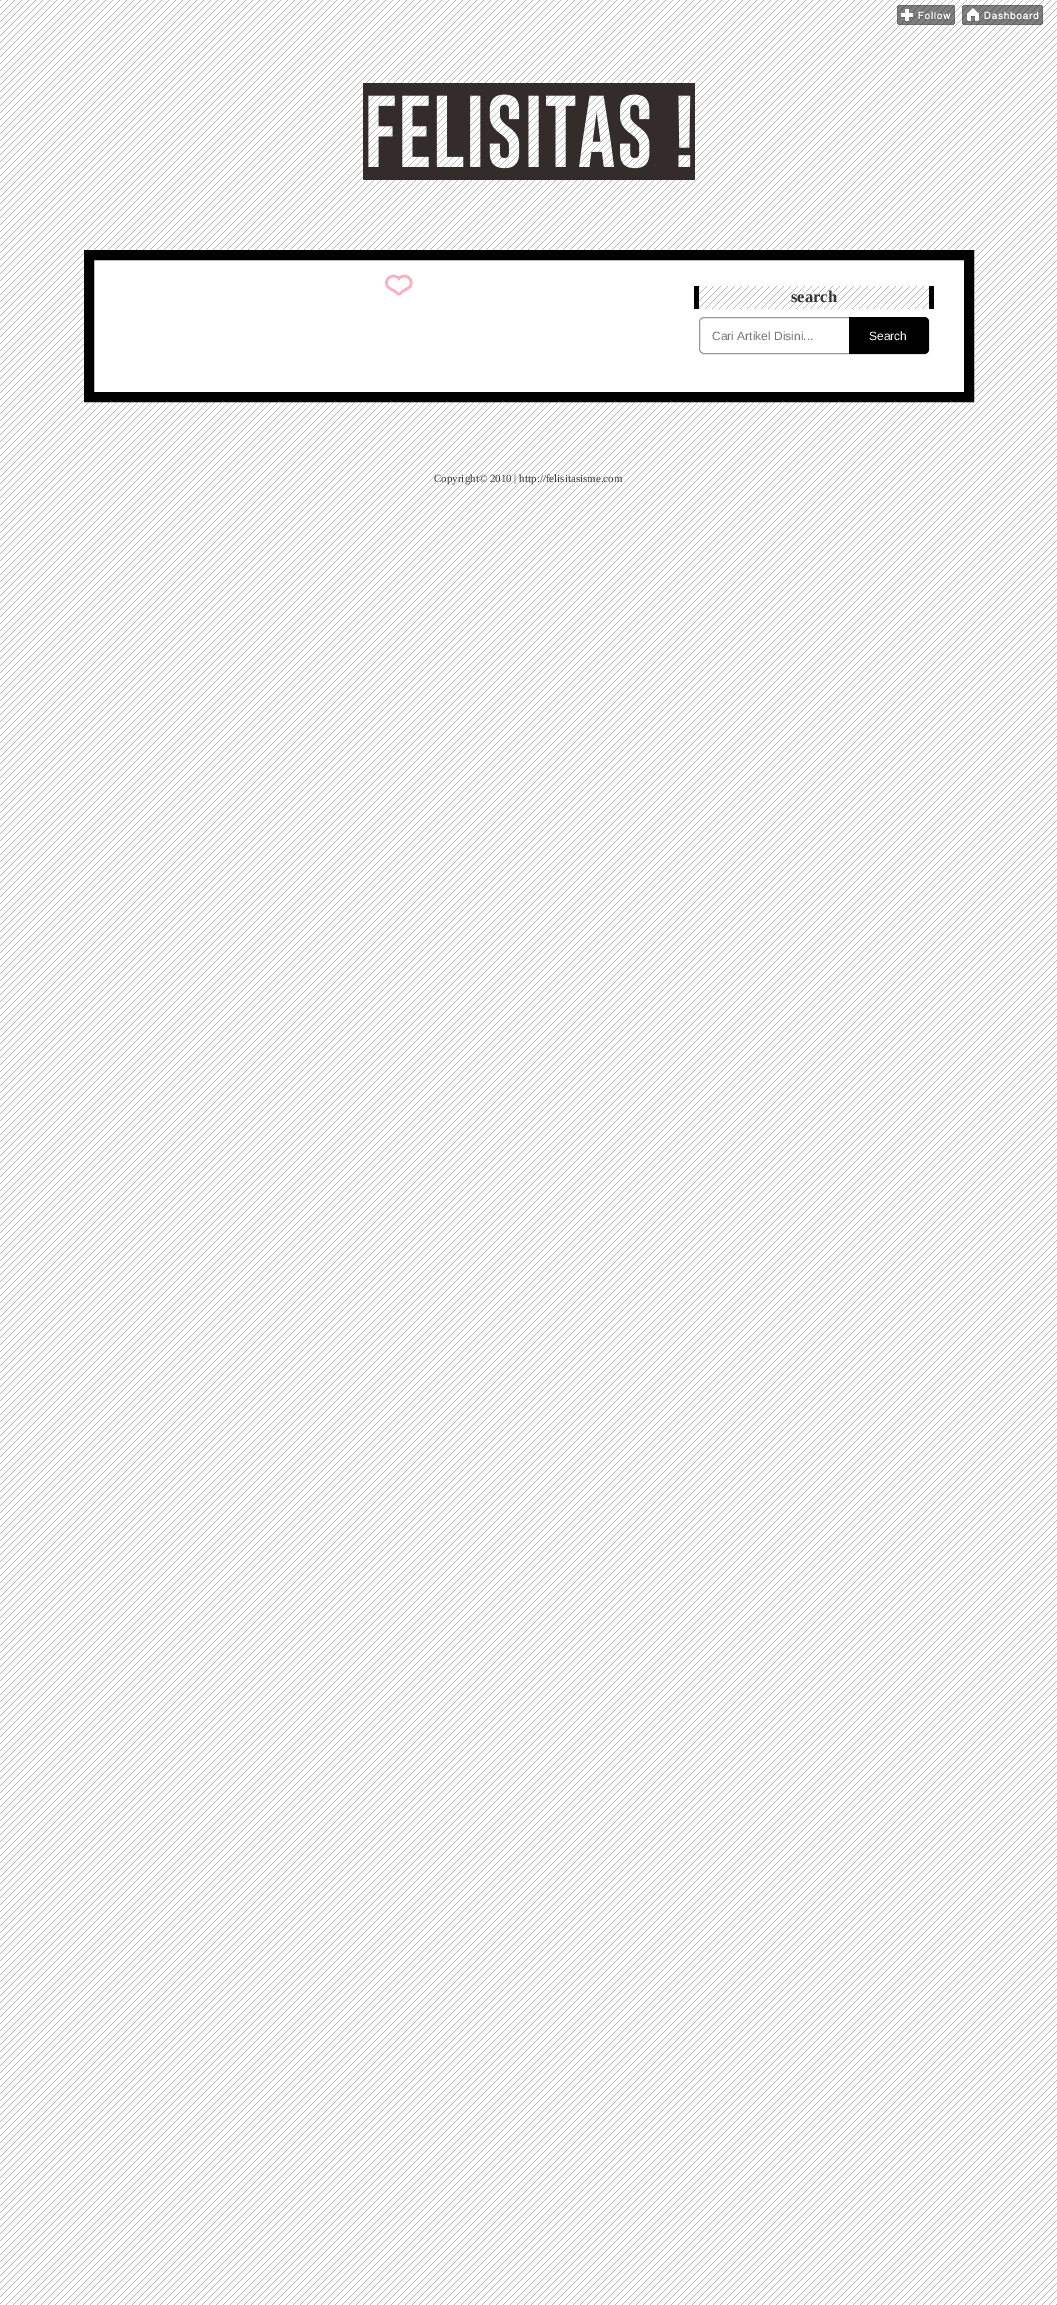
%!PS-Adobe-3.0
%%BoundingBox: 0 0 1057 2305
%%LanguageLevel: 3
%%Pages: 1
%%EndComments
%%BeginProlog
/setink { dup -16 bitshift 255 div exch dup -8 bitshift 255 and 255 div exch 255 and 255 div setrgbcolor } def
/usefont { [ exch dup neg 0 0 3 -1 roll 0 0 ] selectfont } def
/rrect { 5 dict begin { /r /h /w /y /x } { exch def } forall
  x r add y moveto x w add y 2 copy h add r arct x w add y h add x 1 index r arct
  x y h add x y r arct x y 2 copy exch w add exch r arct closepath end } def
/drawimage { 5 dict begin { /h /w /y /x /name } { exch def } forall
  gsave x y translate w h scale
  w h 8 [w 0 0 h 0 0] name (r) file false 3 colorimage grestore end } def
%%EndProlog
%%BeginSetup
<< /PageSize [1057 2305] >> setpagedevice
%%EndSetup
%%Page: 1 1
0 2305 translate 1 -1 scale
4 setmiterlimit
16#FFFFFF setink
0 0 1057 2305 rectfill
(img1.raw) 0 0 1057 2305 drawimage
(img2.raw) 363 83 332 97 drawimage
89 255 moveto 969 255 lineto 969 397 lineto 89 397 lineto closepath gsave fill grestore
16#000000 setink
10 setlinewidth
stroke
(img3.raw) 385 274 28 22 drawimage
(img4.raw) 897 5 58 20 drawimage
(img5.raw) 962 5 81 20 drawimage
(img6.raw) 699 286 230 23 drawimage
929 286 5 23 rectfill
694 286 5 23 rectfill
/LiberationSerif-Bold 16.5 usefont
16#333333 setink
791 302 moveto (search) show
16#999999 setink
1 setlinewidth
699.5 317.5 229 36 4.5 rrect stroke
/LiberationSans-Regular 12 usefont
16#757575 setink
712 340 moveto (Cari Artikel Disini...) show
16#000000 setink
849 317 moveto 924 317 lineto 927 317 929 319 929 322 curveto 929 349 lineto 929 352 927 354 924 354 curveto 849 354 lineto closepath fill
16#FFFFFF setink
869 340 moveto (Search) show
/LiberationSerif-Regular 11 usefont
16#3A3A3A setink
434 482 moveto (Copyright© 2010 | http://felisitasisme.com) show
showpage
%%EOF
